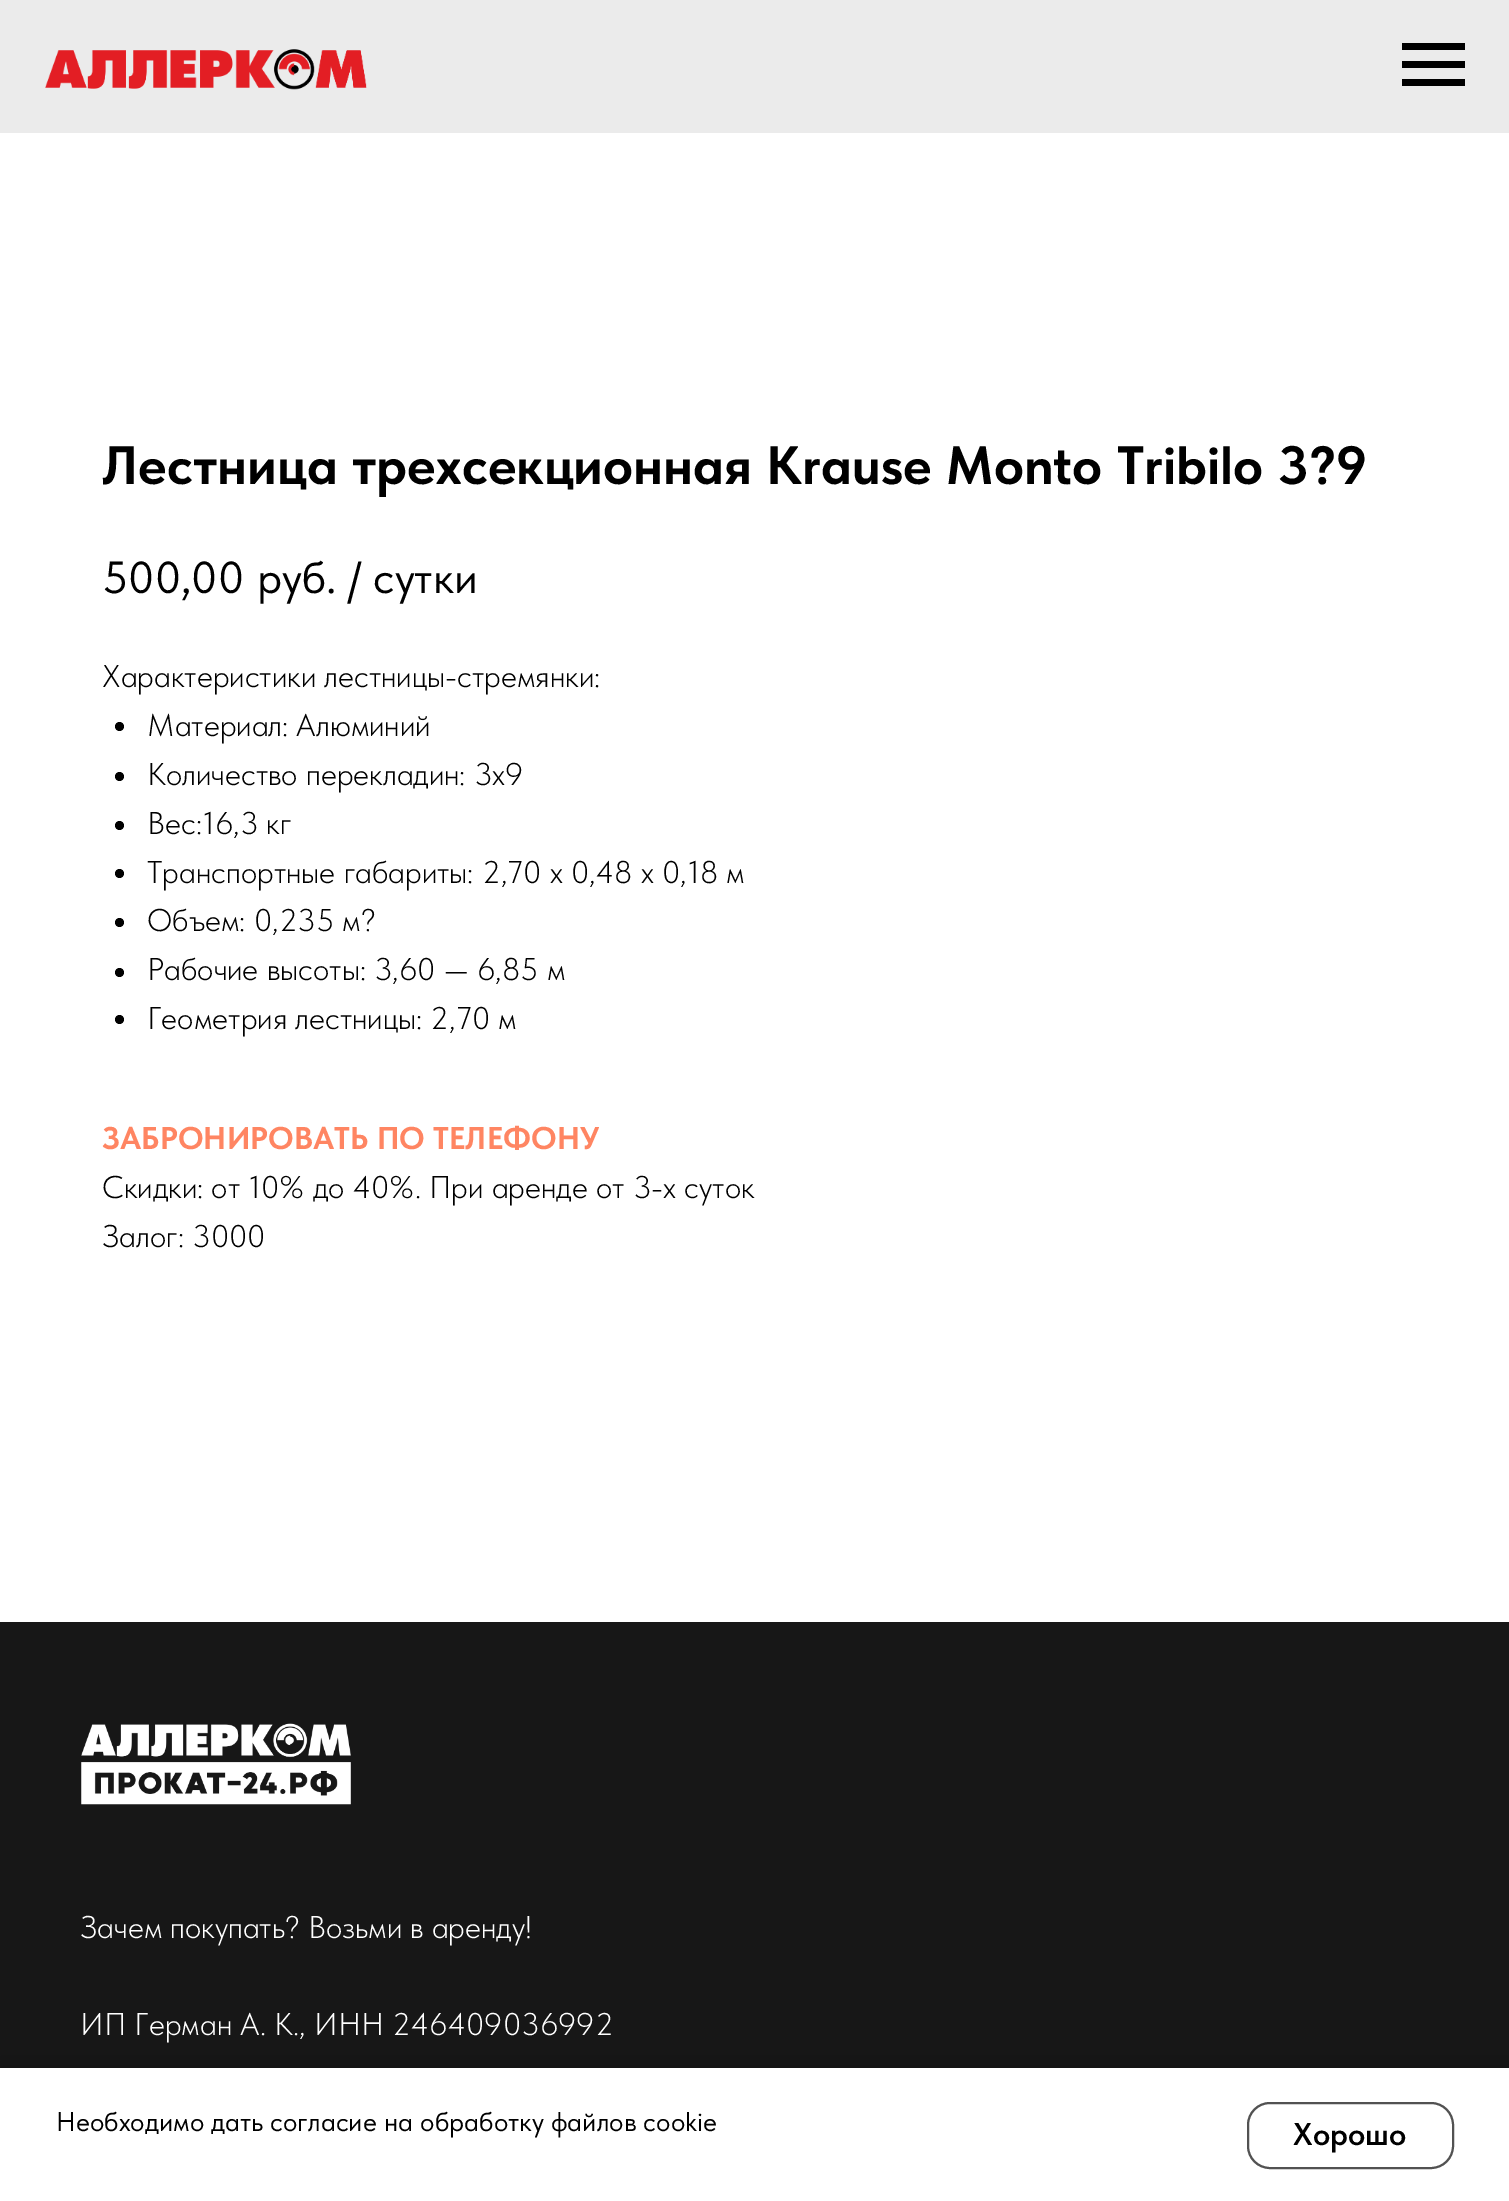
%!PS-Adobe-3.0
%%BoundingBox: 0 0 1509 2201
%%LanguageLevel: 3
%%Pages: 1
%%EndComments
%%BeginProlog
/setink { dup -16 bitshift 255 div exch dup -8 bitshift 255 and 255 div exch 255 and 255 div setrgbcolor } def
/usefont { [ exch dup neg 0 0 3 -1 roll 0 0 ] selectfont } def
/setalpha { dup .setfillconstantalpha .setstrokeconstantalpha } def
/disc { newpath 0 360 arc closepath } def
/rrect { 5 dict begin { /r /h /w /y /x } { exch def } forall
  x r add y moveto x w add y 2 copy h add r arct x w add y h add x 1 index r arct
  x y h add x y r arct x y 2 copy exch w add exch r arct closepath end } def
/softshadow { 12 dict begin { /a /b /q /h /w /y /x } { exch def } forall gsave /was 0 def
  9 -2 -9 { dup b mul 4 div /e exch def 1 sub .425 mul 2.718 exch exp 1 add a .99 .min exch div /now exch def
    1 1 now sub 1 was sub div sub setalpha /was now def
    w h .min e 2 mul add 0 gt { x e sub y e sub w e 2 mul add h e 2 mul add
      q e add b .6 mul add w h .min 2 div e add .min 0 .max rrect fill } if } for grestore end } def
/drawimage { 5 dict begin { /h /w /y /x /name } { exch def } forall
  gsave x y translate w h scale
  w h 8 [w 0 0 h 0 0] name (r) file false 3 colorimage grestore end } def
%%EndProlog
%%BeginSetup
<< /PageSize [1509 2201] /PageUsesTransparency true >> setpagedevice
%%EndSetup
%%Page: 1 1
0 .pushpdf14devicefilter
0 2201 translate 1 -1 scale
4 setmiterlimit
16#FFFFFF setink
0 0 1509 2201 rectfill
16#EBEBEB setink
0 0 1509 133 rectfill
(img1.raw) 45 49 322 41 drawimage
[
    [1402 43 63 7 16#000000]
    [1402 61 63 7 16#000000]
    [1402 79 63 7 16#000000]
] { aload pop setink rectfill } forall
/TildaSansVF-Bold 54 usefont
102 484 moveto (Лестница трехсекционная Krause Monto Tribilo 3?9) show
/TildaSansVF-Regular 45 usefont
102 593 moveto (500,00) show
257 593 moveto (руб. / сутки) show
/TildaSansVF-Light 31.5 usefont
102 687 moveto (Характеристики лестницы-стремянки:) show
119.5 726.5 4.5 disc fill
147 736 moveto (Материал: Алюминий) show
119.5 776.5 4.5 disc fill
147 785 moveto (Количество перекладин: 3х9) show
119.5 825.5 4.5 disc fill
147 834 moveto (Вес:16,3 кг) show
119.5 873.5 4.5 disc fill
147 883 moveto (Транспортные габариты: 2,70 х 0,48 х 0,18 м) show
119.5 922.5 4.5 disc fill
147 931 moveto (Объем: 0,235 м?) show
119.5 972.5 4.5 disc fill
147 980 moveto (Рабочие высоты: 3,60 — 6,85 м) show
119.5 1019.5 4.5 disc fill
147 1029 moveto (Геометрия лестницы: 2,70 м) show
/TildaSansVF-Bold 31.5 usefont
16#FF8562 setink
102 1149 moveto (ЗАБРОНИРОВАТЬ ПО ТЕЛЕФОНУ) show
/TildaSansVF-Light 31.5 usefont
16#000000 setink
102 1198 moveto (Скидки: от 10% до 40%. При аренде от 3-х суток) show
102 1247 moveto (Залог: 3000) show
16#171717 setink
0 1622 1509 446 rectfill
(img2.raw) 81 1723 270 82 drawimage
16#FFFFFF setink
80 1938 moveto (Зачем покупать? Возьми в аренду!) show
80 2035 moveto (ИП Герман А. К., ИНН 246409036992) show
16#000000 setink
0 2068 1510 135 0 11 0.3 softshadow
16#FFFFFF setink
0 2068 1509 133 rectfill
/TildaSansVF-Regular 27 usefont
16#000000 setink
56 2131 moveto (Необходимо дать согласие на обработку файлов cookie) show
16#525252 setink
2 setlinewidth
1248 2103 205 65 22 rrect stroke
/TildaSansVF-SemiBold 31.5 usefont
16#000000 setink
1293 2145 moveto (Хорошо) show
.poppdf14devicefilter showpage
%%EOF
